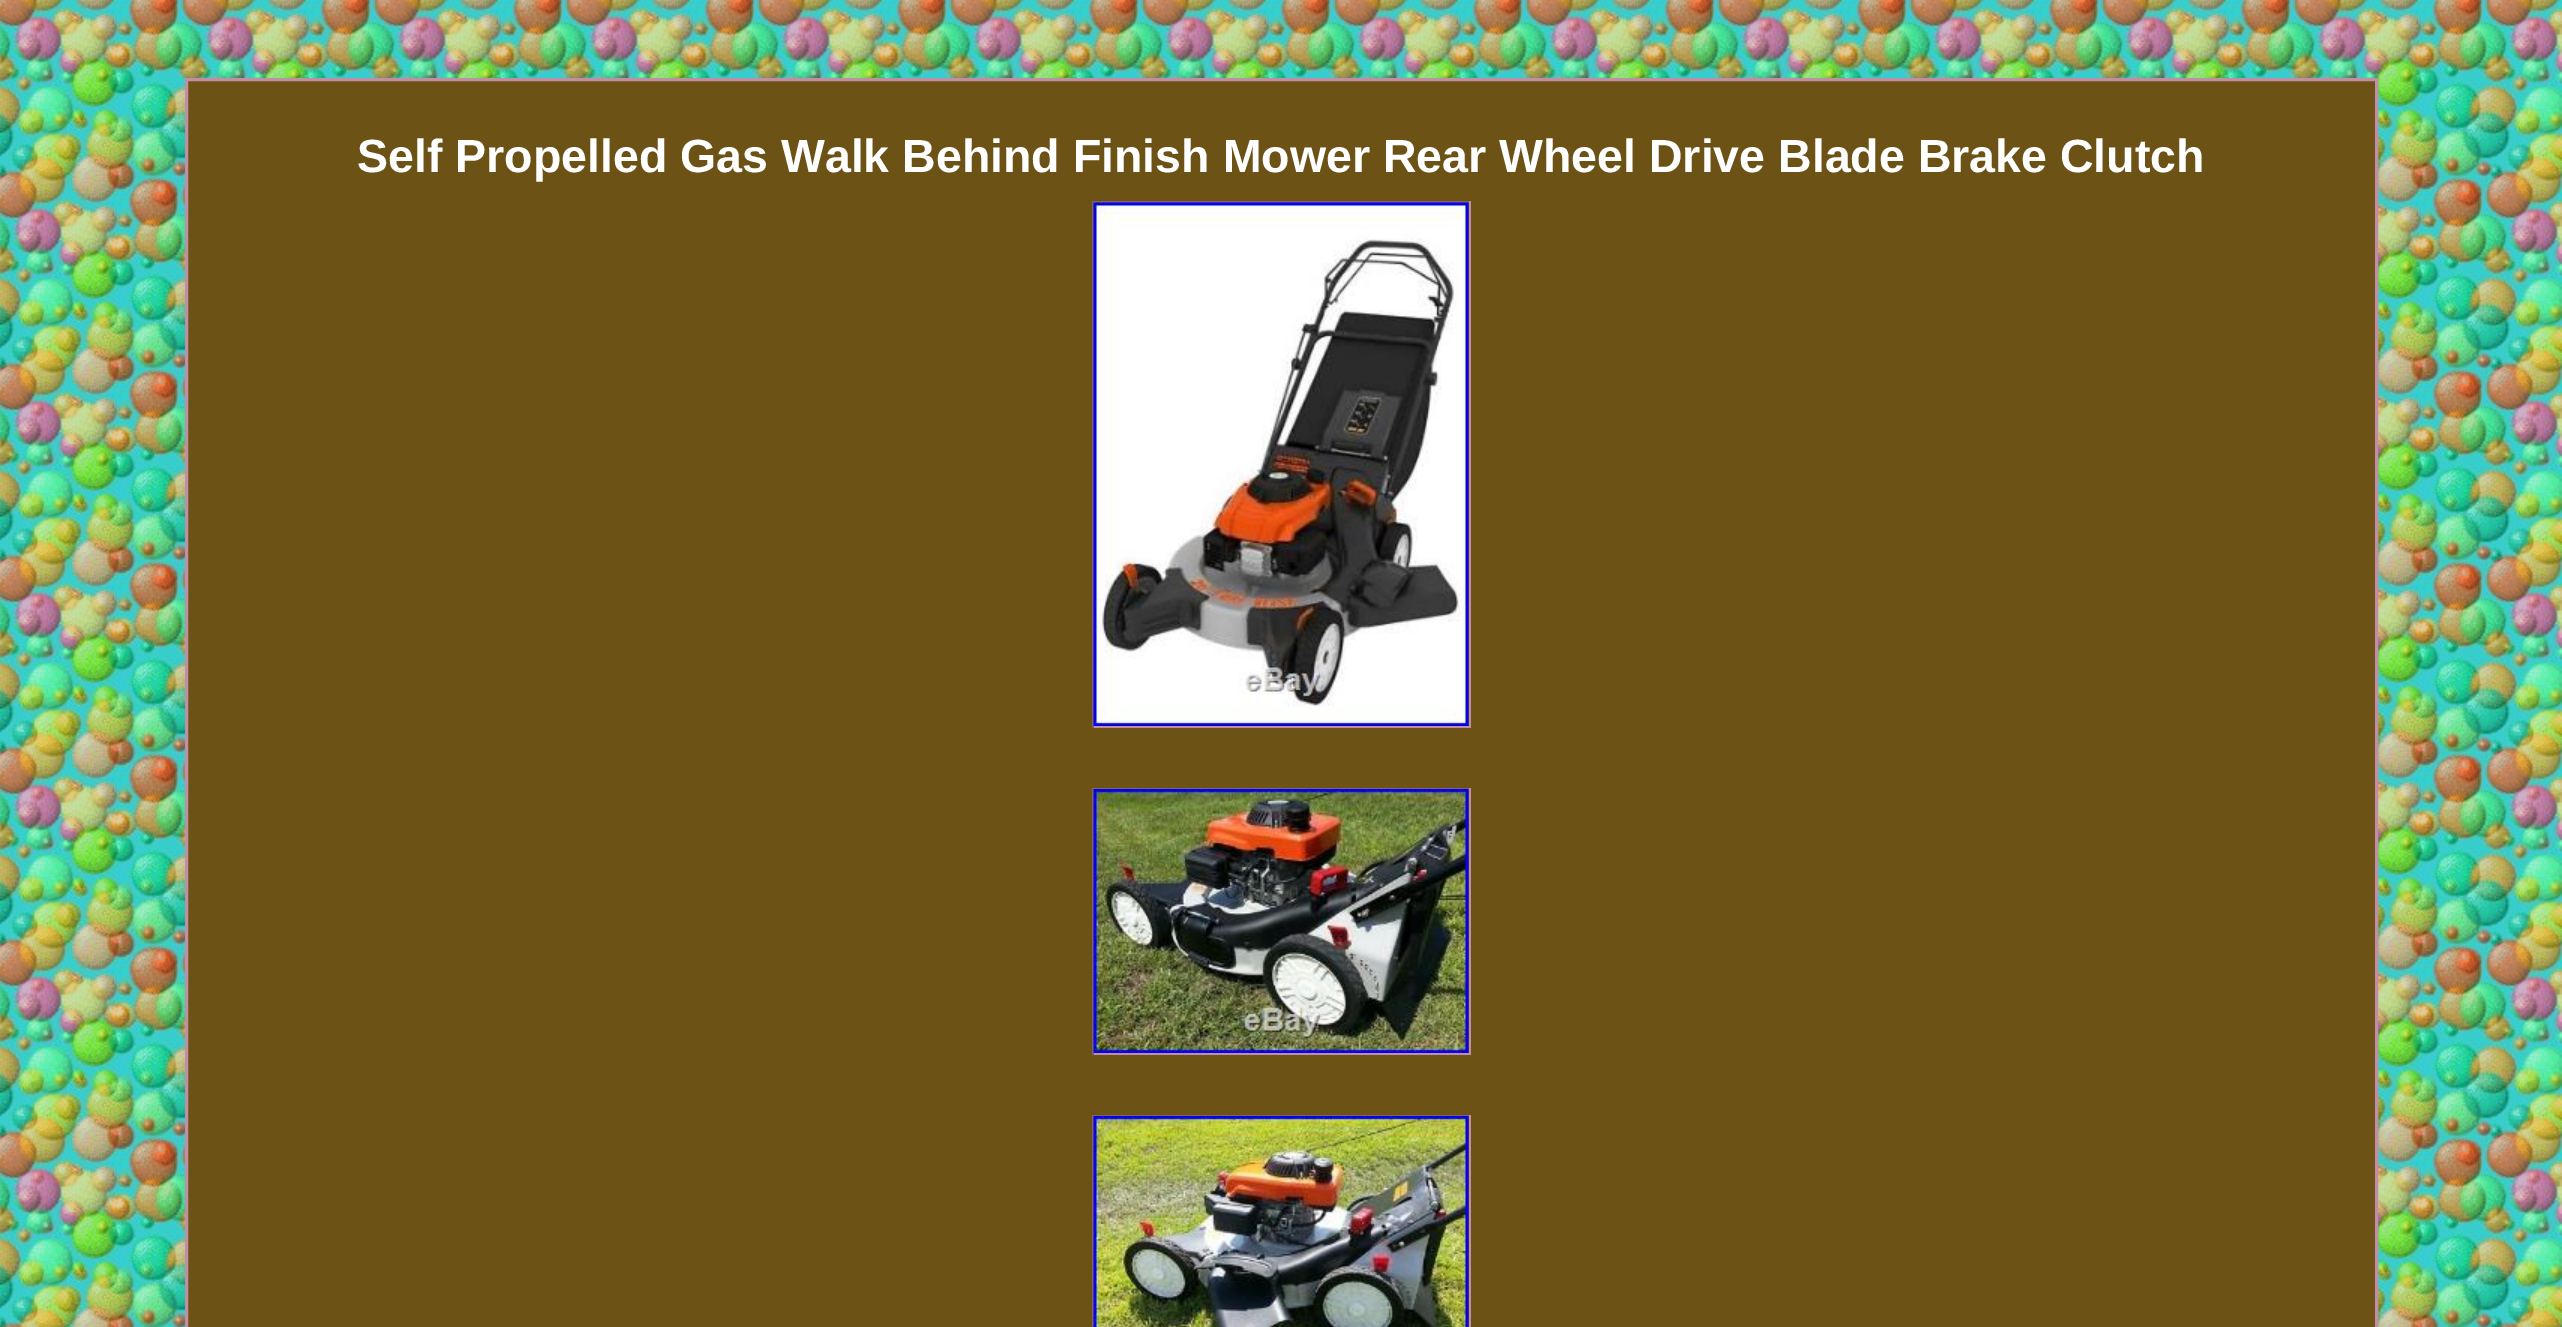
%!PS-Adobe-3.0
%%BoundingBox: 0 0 2562 1327
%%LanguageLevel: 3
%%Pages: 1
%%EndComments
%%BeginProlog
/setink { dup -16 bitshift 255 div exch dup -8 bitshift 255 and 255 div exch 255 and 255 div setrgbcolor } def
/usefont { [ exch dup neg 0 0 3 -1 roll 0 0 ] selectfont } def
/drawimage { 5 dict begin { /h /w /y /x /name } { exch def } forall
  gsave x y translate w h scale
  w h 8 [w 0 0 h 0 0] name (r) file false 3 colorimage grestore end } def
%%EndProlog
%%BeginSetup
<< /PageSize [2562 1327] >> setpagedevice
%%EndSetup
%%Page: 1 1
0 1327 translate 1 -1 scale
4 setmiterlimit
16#FFFFFF setink
0 0 2562 1327 rectfill
(img1.raw) 0 0 2562 1327 drawimage
16#6C5215 setink
186.5 79.5 moveto 2376.5 79.5 lineto 2376.5 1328.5 lineto 186.5 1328.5 lineto closepath gsave fill grestore
16#C08EA7 setink
3 setlinewidth
stroke
/LiberationSans-Bold 46.5 usefont
16#FFFFFF setink
357 172 moveto (Self Propelled Gas Walk Behind Finish Mower Rear Wheel Drive Blade Brake Clutch) show
[
    [1092 201 378 2 16#805F6F]
    [1469 201 2 527 16#C08EA7]
    [1092 726 378 2 16#C08EA7]
    [1092 201 2 527 16#805F6F]
] { aload pop setink rectfill } forall
(img2.raw) 1093 202 376 524 drawimage
[
    [1092 788 378 2 16#805F6F]
    [1469 788 2 267 16#C08EA7]
    [1092 1053 378 2 16#C08EA7]
    [1092 788 2 267 16#805F6F]
] { aload pop setink rectfill } forall
(img3.raw) 1093 789 376 264 drawimage
[
    [1092 1115 378 2 16#805F6F]
    [1092 1115 2 212 16#805F6F]
    [1469 1115 2 212 16#C08EA7]
] { aload pop setink rectfill } forall
(img4.raw) 1093 1116 376 211 drawimage
showpage
%%EOF
